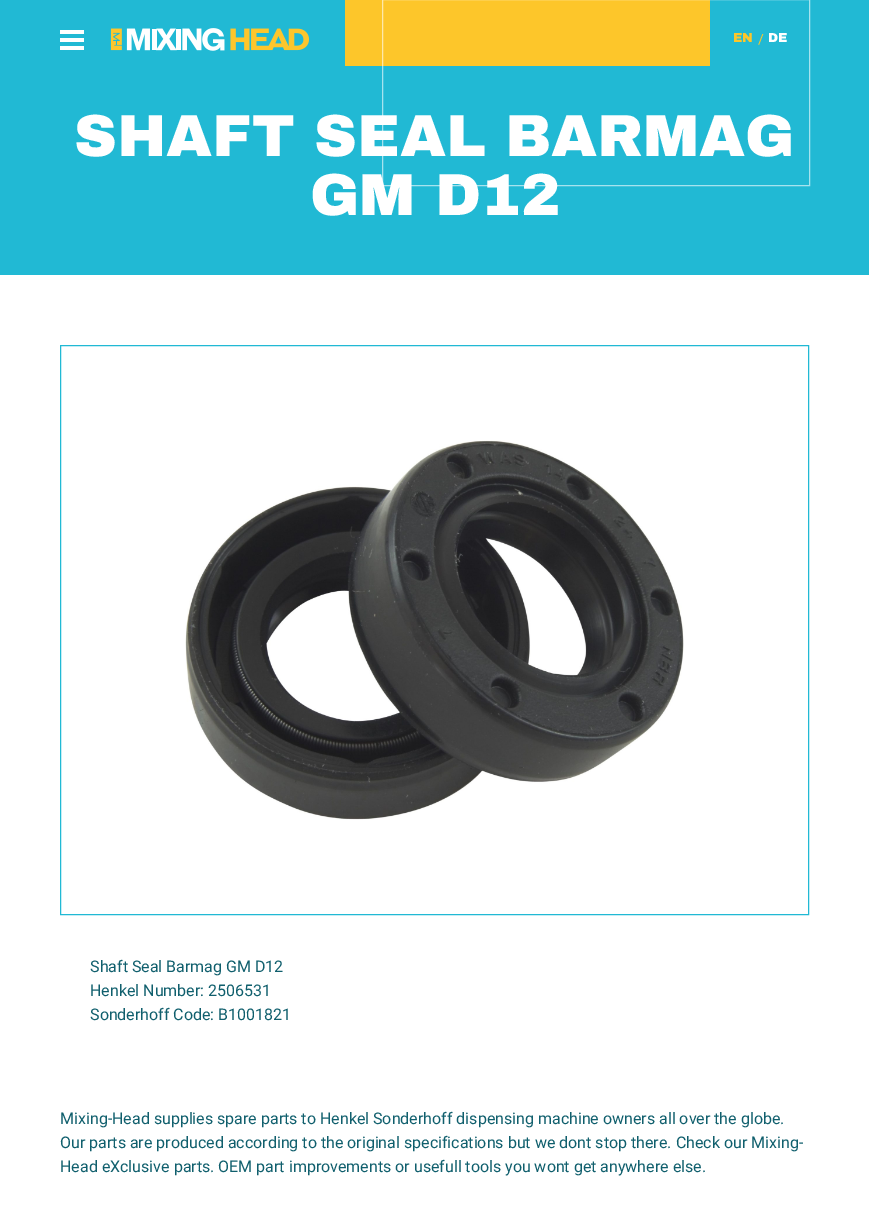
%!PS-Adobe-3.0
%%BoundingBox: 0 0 869 1209
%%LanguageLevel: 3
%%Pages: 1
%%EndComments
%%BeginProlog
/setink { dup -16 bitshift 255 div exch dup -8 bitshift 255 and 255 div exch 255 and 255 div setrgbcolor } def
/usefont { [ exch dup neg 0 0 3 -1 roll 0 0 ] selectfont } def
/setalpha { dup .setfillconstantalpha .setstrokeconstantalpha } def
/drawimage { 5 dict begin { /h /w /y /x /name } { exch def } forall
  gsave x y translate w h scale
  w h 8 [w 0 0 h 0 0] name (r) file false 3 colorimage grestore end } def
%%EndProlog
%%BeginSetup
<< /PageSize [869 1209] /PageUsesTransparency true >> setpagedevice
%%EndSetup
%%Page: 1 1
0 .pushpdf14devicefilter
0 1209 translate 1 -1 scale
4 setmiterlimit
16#FFFFFF setink
0 0 869 1209 rectfill
[
    [0 0 869 275 16#21B9D4]
    [60 30 24 4 16#FFFFFF]
    [60 38 24 4 16#FFFFFF]
    [60 46 24 4 16#FFFFFF]
] { aload pop setink rectfill } forall
(img1.raw) 110 28 200 23 drawimage
16#FDC62A setink
345 0 365 66 rectfill
/ArchivoBlack-Black 59.25 usefont
16#FFFFFF setink
74 156 moveto (SHAFT SEAL BARMAG) show
310 215 moveto (GM D12) show
0.6 setalpha
382.5 -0.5 427 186 rectstroke
/ArchivoBlack-Black 13 usefont
1 setalpha
16#FDC62A setink
733 42 moveto (EN) show
/Roboto-Regular 14 usefont
758 44 moveto (/) show
/ArchivoBlack-Black 13 usefont
16#FFFFFF setink
768 42 moveto (DE) show
16#21B9D4 setink
60.5 345.5 748 569 rectstroke
(img2.raw) 185 440 499 380 drawimage
/Roboto-Regular 16 usefont
16#105F6D setink
[
    [(Shaft Seal Barmag GM D12) 90 972]
    [(Henkel Number: 2506531) 90 996]
    [(Sonderhoff Code: B1001821) 90 1020]
    [(Mixing-Head supplies spare parts to Henkel Sonderhoff dispensing machine owners all over the globe.) 60 1124]
    [(Our parts are produced according to the original specifications but we dont stop there. Check our Mixing-) 60 1148]
    [(Head eXclusive parts. OEM part improvements or usefull tools you wont get anywhere else.) 60 1172]
] { aload pop moveto show } forall
.poppdf14devicefilter showpage
%%EOF
